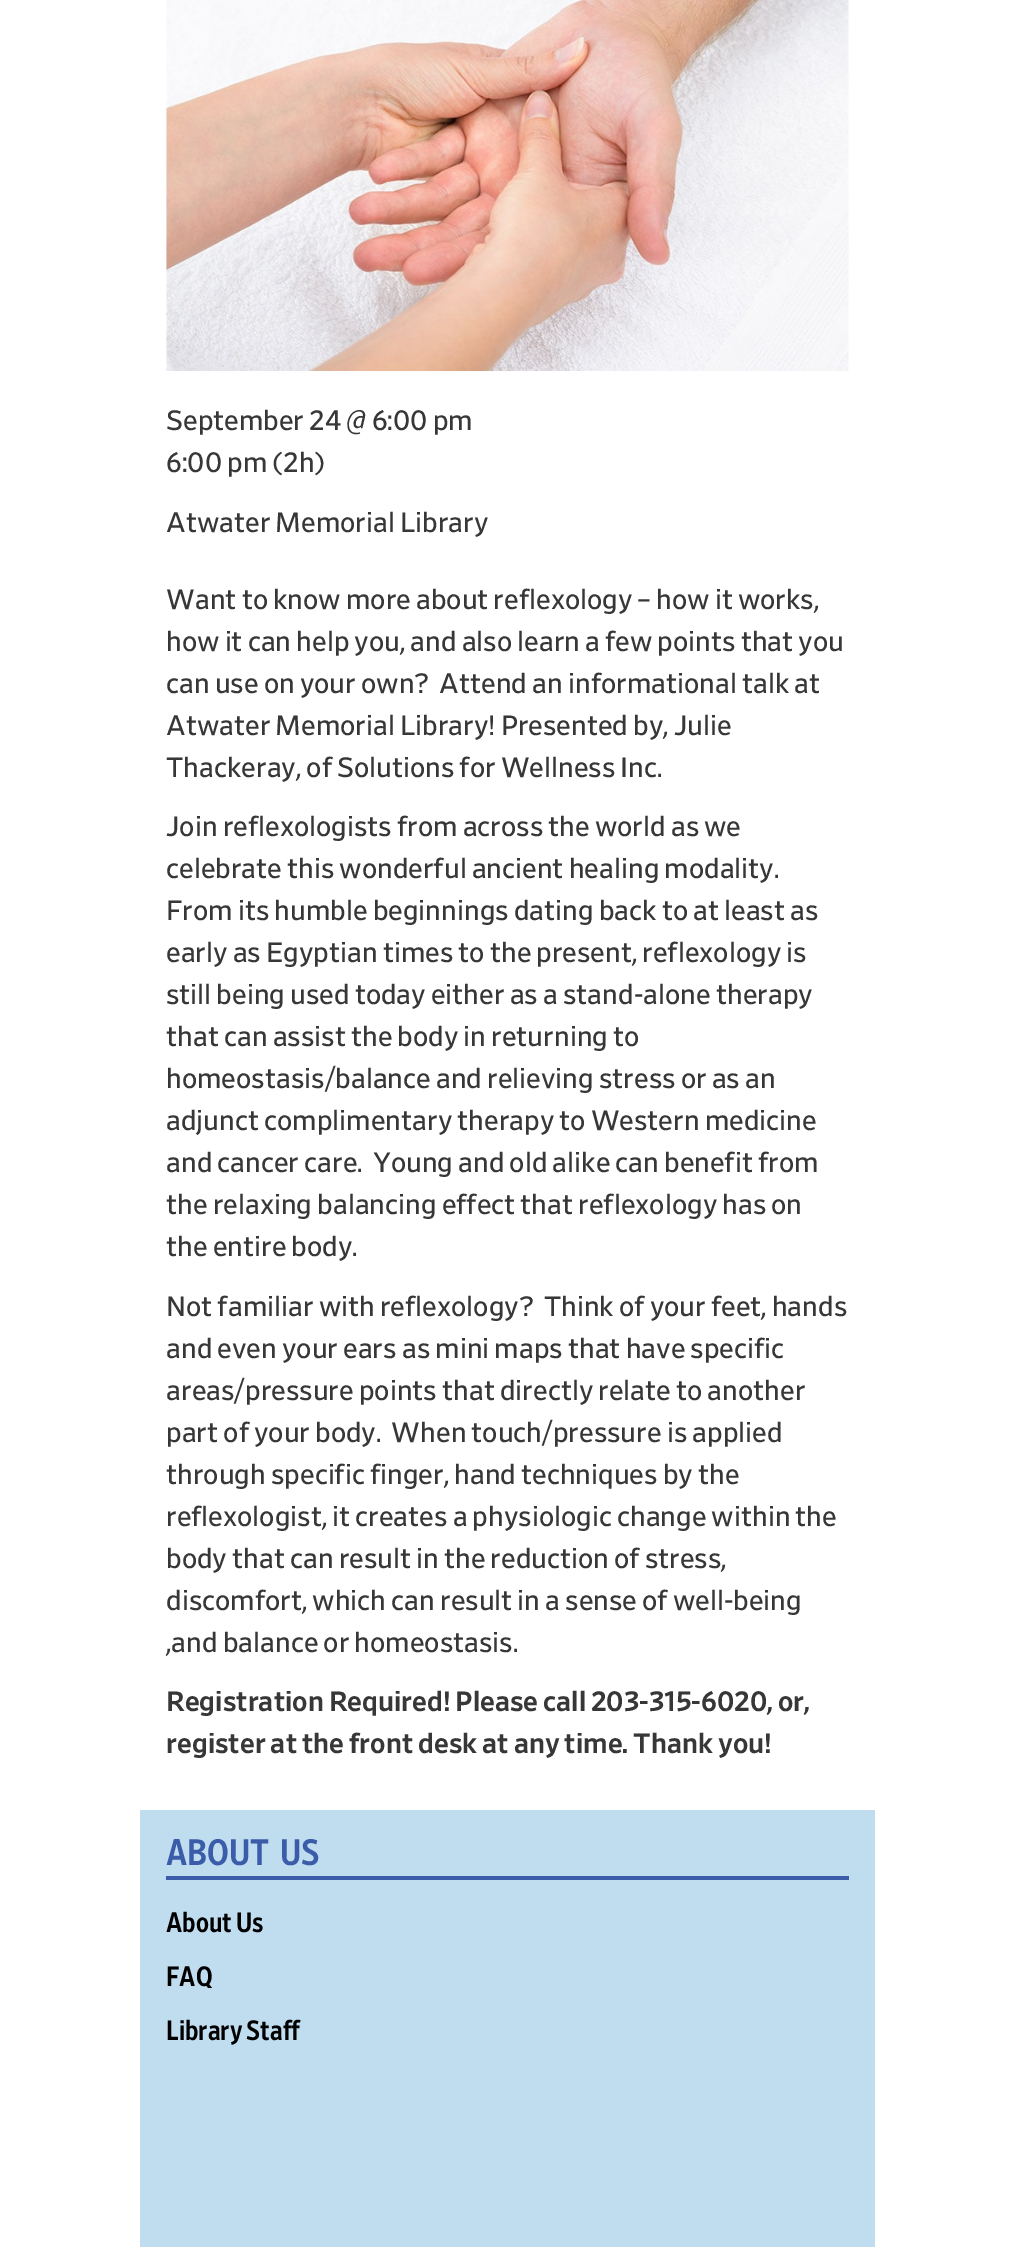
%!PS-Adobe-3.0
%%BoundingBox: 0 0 1015 2247
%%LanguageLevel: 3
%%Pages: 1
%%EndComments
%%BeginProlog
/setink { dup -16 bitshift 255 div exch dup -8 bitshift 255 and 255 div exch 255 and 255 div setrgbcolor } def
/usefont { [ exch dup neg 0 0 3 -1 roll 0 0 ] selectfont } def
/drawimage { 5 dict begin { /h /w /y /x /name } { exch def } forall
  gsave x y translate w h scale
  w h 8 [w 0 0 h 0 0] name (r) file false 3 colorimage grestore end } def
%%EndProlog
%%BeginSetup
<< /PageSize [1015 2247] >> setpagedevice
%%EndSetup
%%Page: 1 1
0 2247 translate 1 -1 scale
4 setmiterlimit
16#FFFFFF setink
0 0 1015 2247 rectfill
(img1.raw) 166 0 683 371 drawimage
/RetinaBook-Regular 28 usefont
16#373737 setink
[
    [(September 24 @ 6:00 pm) 166 430]
    [(6:00 pm \(2h\)) 166 472]
    [(Atwater Memorial Library) 166 532]
    [(Want to know more about reflexology – how it works,) 166 609]
    [(how it can help you, and also learn a few points that you) 166 651]
    [(can use on your own?  Attend an informational talk at) 166 693]
    [(Atwater Memorial Library! Presented by, Julie) 166 735]
    [(Thackeray, of Solutions for Wellness Inc.) 166 777]
    [(Join reflexologists from across the world as we) 166 836]
    [(celebrate this wonderful ancient healing modality.) 166 878]
    [(From its humble beginnings dating back to at least as) 166 920]
    [(early as Egyptian times to the present, reflexology is) 166 962]
    [(still being used today either as a stand-alone therapy) 166 1004]
    [(that can assist the body in returning to) 166 1046]
    [(homeostasis/balance and relieving stress or as an) 166 1088]
    [(adjunct complimentary therapy to Western medicine) 166 1130]
    [(and cancer care.  Young and old alike can benefit from) 166 1172]
    [(the relaxing balancing effect that reflexology has on) 166 1214]
    [(the entire body.) 166 1256]
    [(Not familiar with reflexology?  Think of your feet, hands) 166 1316]
    [(and even your ears as mini maps that have specific) 166 1358]
    [(areas/pressure points that directly relate to another) 166 1400]
    [(part of your body.  When touch/pressure is applied) 166 1442]
    [(through specific finger, hand techniques by the) 166 1484]
    [(reflexologist, it creates a physiologic change within the) 166 1526]
    [(body that can result in the reduction of stress,) 166 1568]
    [(discomfort, which can result in a sense of well-being) 166 1610]
    [(,and balance or homeostasis.) 166 1652]
] { aload pop moveto show } forall
/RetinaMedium-Medium 28 usefont
166 1711 moveto (Registration Required! Please call 203-315-6020, or,) show
166 1753 moveto (register at the front desk at any time. Thank you!) show
16#C0DDEF setink
140 1810 735 437 rectfill
16#3B5CA9 setink
166 1876 683 4 rectfill
/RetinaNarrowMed-Regular 36.75 usefont
166 1865 moveto 5 0 32 (ABOUT US) widthshow
/RetinaNarrowMed-Regular 28 usefont
16#000000 setink
[
    [(About Us) 166 1932]
    [(FAQ) 166 1986]
    [(Library Staff) 166 2040]
] { aload pop moveto show } forall
showpage
%%EOF
